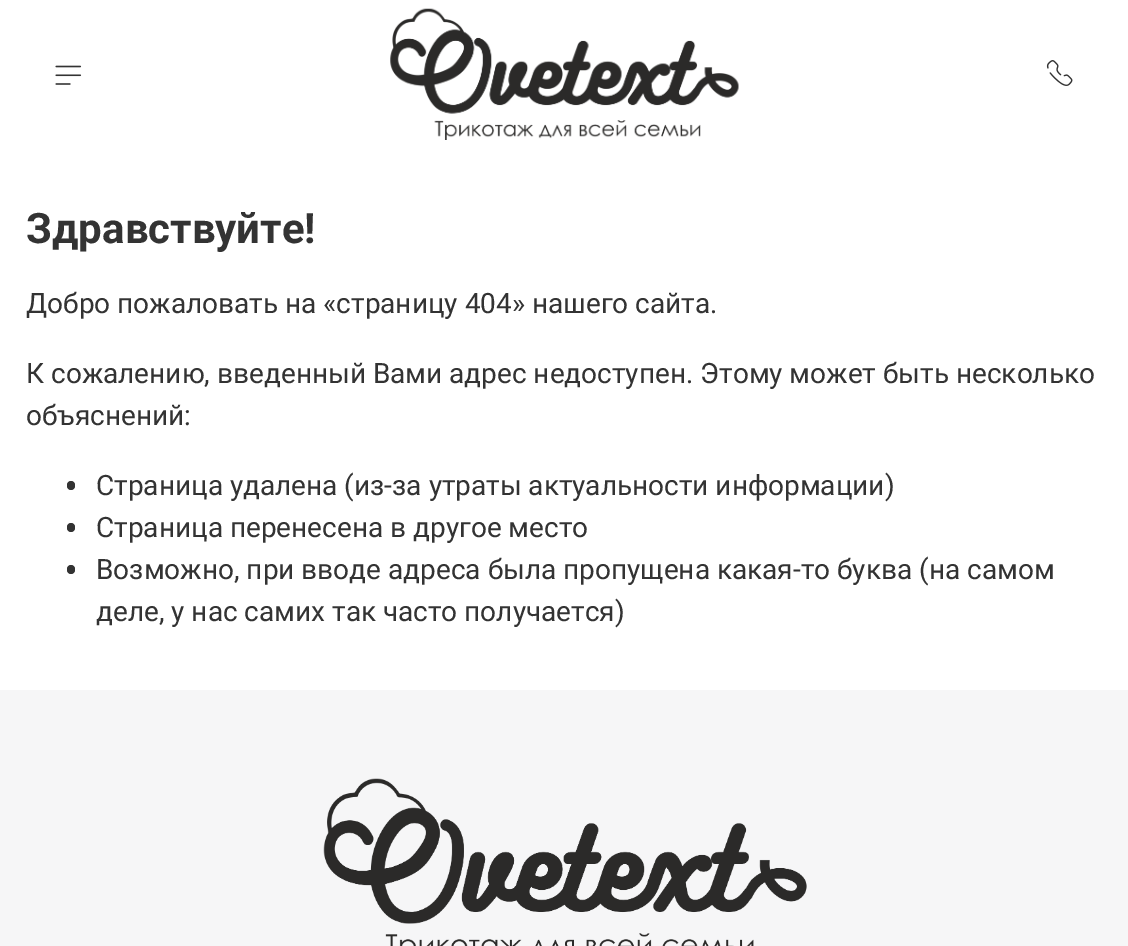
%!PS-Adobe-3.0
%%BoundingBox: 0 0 1128 946
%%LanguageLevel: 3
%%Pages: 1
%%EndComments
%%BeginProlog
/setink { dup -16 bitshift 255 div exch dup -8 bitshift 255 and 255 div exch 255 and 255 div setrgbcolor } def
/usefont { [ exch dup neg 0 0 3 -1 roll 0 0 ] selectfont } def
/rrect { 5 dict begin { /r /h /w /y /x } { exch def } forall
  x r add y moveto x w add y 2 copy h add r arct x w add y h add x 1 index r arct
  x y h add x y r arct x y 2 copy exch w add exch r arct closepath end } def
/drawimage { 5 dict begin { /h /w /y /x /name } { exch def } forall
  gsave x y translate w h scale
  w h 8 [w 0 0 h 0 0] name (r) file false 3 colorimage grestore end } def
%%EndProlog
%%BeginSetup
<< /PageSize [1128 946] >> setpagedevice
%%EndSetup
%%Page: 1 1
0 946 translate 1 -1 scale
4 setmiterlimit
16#FFFFFF setink
0 0 1128 946 rectfill
(img1.raw) 55 65 27 20 drawimage
(img2.raw) 390 8 349 132 drawimage
(img3.raw) 1046 60 27 26 drawimage
/Roboto-Bold 42 usefont
16#333333 setink
26 243 moveto (Здравствуйте!) show
/Roboto-Regular 28 usefont
[
    [(Добро пожаловать на «страницу 404» нашего сайта.) 26 313]
    [(К сожалению, введенный Вами адрес недоступен. Этому может быть несколько) 26 383]
    [(объяснений:) 26 425]
] { aload pop moveto show } forall
67 481 8 9 4 rrect fill
96 495 moveto (Страница удалена \(из-за утраты актуальности информации\)) show
67 523 8 9 4 rrect fill
96 537 moveto (Страница перенесена в другое место) show
67 565 8 9 4 rrect fill
96 579 moveto (Возможно, при вводе адреса была пропущена какая-то буква \(на самом) show
96 621 moveto (деле, у нас самих так часто получается\)) show
16#F6F6F7 setink
0 690 1128 256 rectfill
(img4.raw) 323 778 484 168 drawimage
showpage
%%EOF
